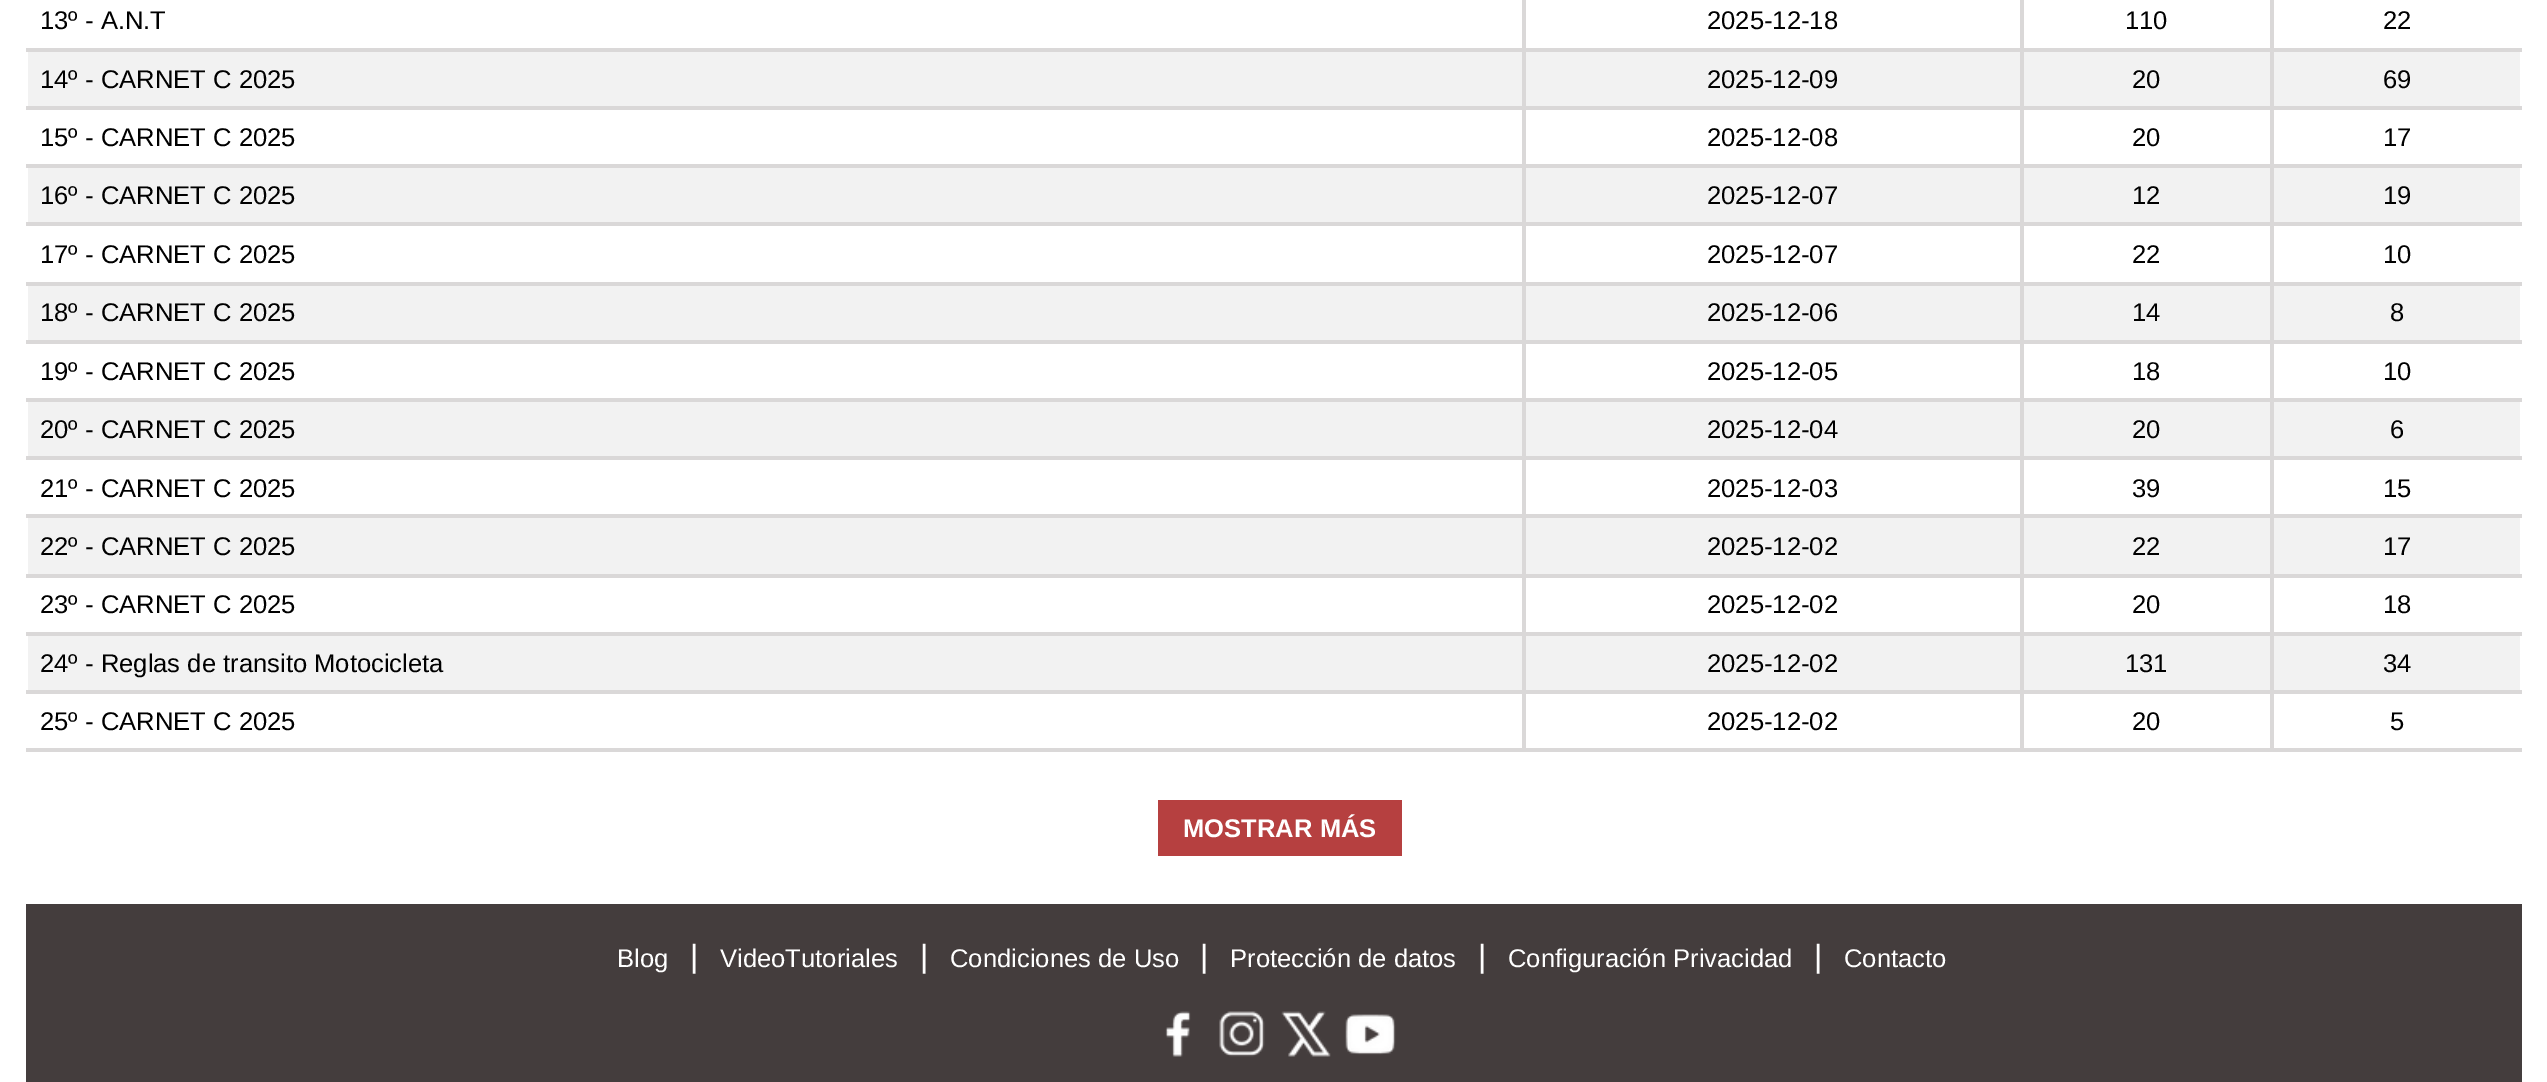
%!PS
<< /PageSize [2547 1082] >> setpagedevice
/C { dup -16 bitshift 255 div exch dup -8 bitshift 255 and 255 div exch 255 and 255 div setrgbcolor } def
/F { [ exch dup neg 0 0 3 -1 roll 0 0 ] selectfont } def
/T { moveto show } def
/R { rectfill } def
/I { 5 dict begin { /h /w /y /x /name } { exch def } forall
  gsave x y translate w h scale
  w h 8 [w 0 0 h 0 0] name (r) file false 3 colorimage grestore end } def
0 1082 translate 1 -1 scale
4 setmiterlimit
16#FFFFFF C
0 0 2547 1082 R
/LiberationSans-Regular 25.6 F
16#000000 C
(13º - A.N.T) 40 29 T
16#DAD8D8 C
2270 48 252 4 R
16#F2F2F2 C
28 52 2492 54 R
16#DAD8D8 C
2270 106 252 4 R
2270 164 252 4 R
16#F2F2F2 C
28 168 2492 54 R
16#DAD8D8 C
2270 222 252 4 R
2270 282 252 4 R
16#F2F2F2 C
28 286 2492 54 R
16#DAD8D8 C
2270 340 252 4 R
2270 398 252 4 R
16#F2F2F2 C
28 402 2492 54 R
16#DAD8D8 C
2270 456 252 4 R
2270 514 252 4 R
16#F2F2F2 C
28 518 2492 56 R
16#DAD8D8 C
2270 574 252 4 R
2270 632 252 4 R
16#F2F2F2 C
28 636 2492 54 R
16#DAD8D8 C
2270 690 252 4 R
2270 748 252 4 R
2270 690 4 62 R
2020 690 254 4 R
2270 632 4 62 R
2020 632 254 4 R
2270 574 4 62 R
2020 574 254 4 R
2270 514 4 64 R
2020 514 254 4 R
2270 456 4 62 R
2020 456 254 4 R
2270 398 4 62 R
2020 398 254 4 R
2270 340 4 62 R
2020 340 254 4 R
2270 282 4 62 R
2020 282 254 4 R
2270 222 4 64 R
2020 222 254 4 R
2270 164 4 62 R
2020 164 254 4 R
2270 106 4 62 R
2020 106 254 4 R
2270 48 4 62 R
2020 48 254 4 R
2020 748 254 4 R
2020 690 4 62 R
1522 690 502 4 R
2020 632 4 62 R
1522 632 502 4 R
2020 574 4 62 R
1522 574 502 4 R
2020 514 4 64 R
1522 514 502 4 R
2020 456 4 62 R
1522 456 502 4 R
2020 398 4 62 R
1522 398 502 4 R
2020 340 4 62 R
1522 340 502 4 R
2020 282 4 62 R
1522 282 502 4 R
2020 222 4 64 R
1522 222 502 4 R
2020 164 4 62 R
1522 164 502 4 R
2020 106 4 62 R
1522 106 502 4 R
2020 48 4 62 R
1522 48 502 4 R
1522 748 502 4 R
1522 690 4 62 R
26 690 1500 4 R
1522 632 4 62 R
26 632 1500 4 R
1522 574 4 62 R
26 574 1500 4 R
1522 514 4 64 R
26 514 1500 4 R
1522 456 4 62 R
26 456 1500 4 R
1522 398 4 62 R
26 398 1500 4 R
1522 340 4 62 R
26 340 1500 4 R
1522 282 4 62 R
26 282 1500 4 R
1522 222 4 64 R
26 222 1500 4 R
1522 164 4 62 R
26 164 1500 4 R
1522 106 4 62 R
26 106 1500 4 R
1522 48 4 62 R
26 48 1500 4 R
1522 0 4 52 R
16#000000 C
(2025-12-18) 1707 29 T
16#DAD8D8 C
2020 0 4 52 R
16#000000 C
(110) 2125 29 T
16#DAD8D8 C
2270 0 4 52 R
16#000000 C
(22) 2383 29 T
(14º - CARNET C 2025) 40 88 T
(2025-12-09) 1707 88 T
(20) 2132 88 T
(69) 2383 88 T
(15º - CARNET C 2025) 40 146 T
(2025-12-08) 1707 146 T
(20) 2132 146 T
(17) 2383 146 T
(16º - CARNET C 2025) 40 204 T
(2025-12-07) 1707 204 T
(12) 2132 204 T
(19) 2383 204 T
(17º - CARNET C 2025) 40 263 T
(2025-12-07) 1707 263 T
(22) 2132 263 T
(10) 2383 263 T
(18º - CARNET C 2025) 40 321 T
(2025-12-06) 1707 321 T
(14) 2132 321 T
(8) 2390 321 T
(19º - CARNET C 2025) 40 380 T
(2025-12-05) 1707 380 T
(18) 2132 380 T
(10) 2383 380 T
(20º - CARNET C 2025) 40 438 T
(2025-12-04) 1707 438 T
(20) 2132 438 T
(6) 2390 438 T
(21º - CARNET C 2025) 40 497 T
(2025-12-03) 1707 497 T
(39) 2132 497 T
(15) 2383 497 T
(22º - CARNET C 2025) 40 555 T
(2025-12-02) 1707 555 T
(22) 2132 555 T
(17) 2383 555 T
(23º - CARNET C 2025) 40 613 T
(2025-12-02) 1707 613 T
(20) 2132 613 T
(18) 2383 613 T
(24º - Reglas de transito Motocicleta) 40 672 T
(2025-12-02) 1707 672 T
(131) 2125 672 T
(34) 2383 672 T
16#DAD8D8 C
26 748 1500 4 R
16#000000 C
(25º - CARNET C 2025) 40 730 T
(2025-12-02) 1707 730 T
(20) 2132 730 T
(5) 2390 730 T
16#B64040 C
1158 800 244 56 R
/LiberationSans-Bold 25.6 F
16#FFFFFF C
(MOSTRAR MÁS) 1183 837 T
16#443D3D C
26 904 2496 178 R
/LiberationSans-Regular 25.6 F
16#FFFFFF C
(Blog) 617 967 T
/LiberationSans-Regular 32 F
(|) 690 967 T
/LiberationSans-Regular 25.6 F
(VideoTutoriales) 720 967 T
/LiberationSans-Regular 32 F
(|) 920 967 T
/LiberationSans-Regular 25.6 F
(Condiciones de Uso) 950 967 T
/LiberationSans-Regular 32 F
(|) 1200 967 T
/LiberationSans-Regular 25.6 F
(Protección de datos) 1230 967 T
/LiberationSans-Regular 32 F
(|) 1478 967 T
/LiberationSans-Regular 25.6 F
(Configuración Privacidad) 1508 967 T
/LiberationSans-Regular 32 F
(|) 1814 967 T
/LiberationSans-Regular 25.6 F
(Contacto) 1844 967 T
(1.rgb) 1165 1011 26 46 I
(2.rgb) 1219 1011 46 46 I
(3.rgb) 1281 1011 50 46 I
(4.rgb) 1345 1014 51 41 I
showpage
